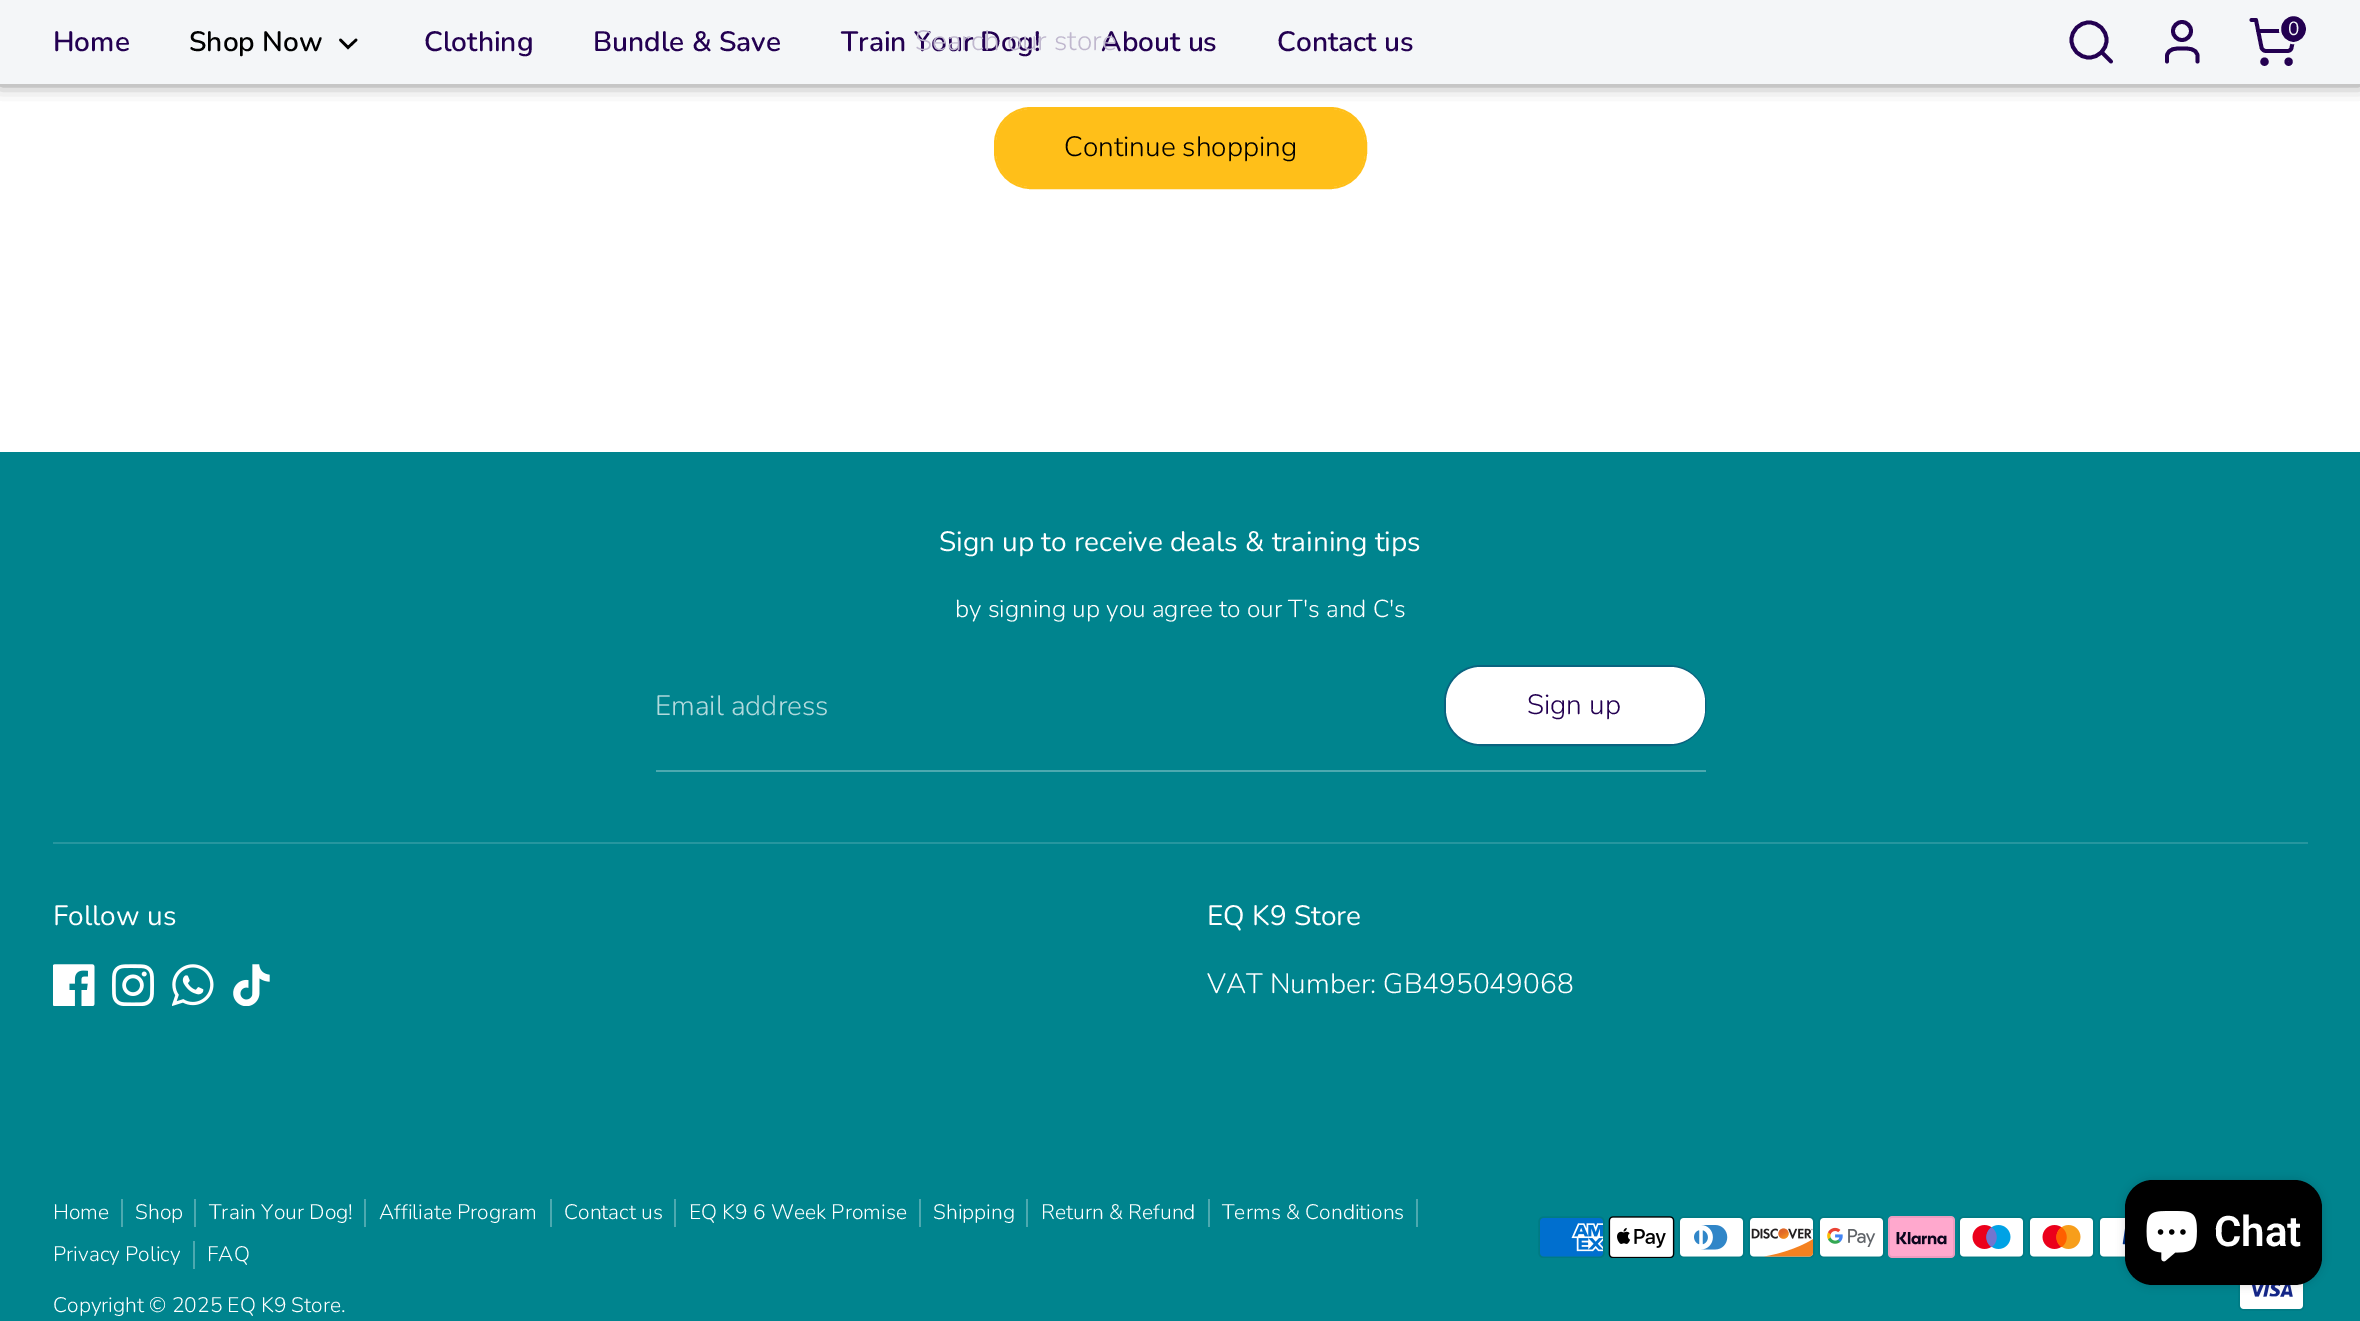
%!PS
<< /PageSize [2360 1321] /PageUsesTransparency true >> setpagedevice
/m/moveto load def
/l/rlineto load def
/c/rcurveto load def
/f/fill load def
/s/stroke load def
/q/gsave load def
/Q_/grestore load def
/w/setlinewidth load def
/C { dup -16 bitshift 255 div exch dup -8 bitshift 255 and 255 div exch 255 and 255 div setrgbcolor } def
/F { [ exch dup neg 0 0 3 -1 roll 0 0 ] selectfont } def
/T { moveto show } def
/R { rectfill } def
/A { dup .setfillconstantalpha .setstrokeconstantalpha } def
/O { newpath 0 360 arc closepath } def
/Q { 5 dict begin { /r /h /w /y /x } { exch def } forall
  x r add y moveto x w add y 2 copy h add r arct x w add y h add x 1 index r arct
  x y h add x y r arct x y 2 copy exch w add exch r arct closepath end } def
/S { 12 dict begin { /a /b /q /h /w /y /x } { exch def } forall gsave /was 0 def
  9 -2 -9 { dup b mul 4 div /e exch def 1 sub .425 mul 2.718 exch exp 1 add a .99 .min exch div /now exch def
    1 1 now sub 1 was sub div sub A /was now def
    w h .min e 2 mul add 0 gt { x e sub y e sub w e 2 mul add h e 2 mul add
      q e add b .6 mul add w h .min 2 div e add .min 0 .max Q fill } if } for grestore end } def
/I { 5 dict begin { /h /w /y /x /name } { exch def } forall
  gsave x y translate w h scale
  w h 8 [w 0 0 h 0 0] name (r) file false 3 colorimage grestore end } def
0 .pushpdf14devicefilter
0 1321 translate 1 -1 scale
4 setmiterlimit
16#FFFFFF C
0 0 2360 1321 R
16#FFBF19 C
2 w
995 108 371 80 36 Q s
16#000000 C
0 -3 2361 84 0 9 .75 S
16#F4F6F8 C
0 0 2360 84 R
/Nunito-SemiBold 28 F
16#230051 C
(Home) 53 51 T
16#000000 C
(Shop Now) 189 51 T
2.6 w
1 setlinecap
340.5 40 m 7.5 7.5 l 8 -7.5 l s
16#230051 C
(Clothing) 424 51 T
(Bundle & Save) 593 51 T
(Train Your Dog!) 841 51 T
(About us) 1101 51 T
(Contact us) 1277 51 T
3.8 w
0 setlinecap
2089 40 17.5 O s
1 setlinecap
1 setlinejoin
2111 61.5 m -9.5 -9.5 l s
2197.5 61.5 m 0 -6 l -1.5 -7.5 -9 -7 -15.5 -7 c -6 0 -13.5 -.5 -15 7 c 0 6 l s
0 setlinecap
0 setlinejoin
2182 31 9 O s
2264.5 61.7 2.2 O s
2288.6 61.7 2.2 O s
1 setlinecap
1 setlinejoin
2251.5 20 m 4.5 0 l 5.5 27.5 l .5 2 2.5 3.5 4.5 3.5 c 21.5 0 l 2 0 4 -1.5 4 -3.5 c 4 -16.5 l -37.5 0 l s
2280 15 27 28 13.5 Q q f Q_
16#F4F6F8 C
2 w
0 setlinecap
0 setlinejoin
s
/Nunito-Regular 19 F
(0) 2288 35 T
/Nunito-Light 28 F
16#C0B8CE C
(Search our store) 915 50 T
16#FFBF19 C
996 109 369 78 35 Q f
16#000000 C
(Continue shopping) 1064 156 T
16#00848E C
0 452 2360 869 R
/Nunito-Regular 28 F
16#FFFFFF C
(Sign up to receive deals & training tips) 939 551 T
/Nunito-Light 24.5 F
(by signing up you agree to our T's and C's) 955 617 T
16#4DA9B0 C
656 770 1050 2 R
/Nunito-Light 28 F
16#B3DADD C
(Email address) 655 715 T
16#09637F C
1445 666 260 79 36 Q s
16#FFFFFF C
1446 667 259 77 35 Q f
16#230051 C
(Sign up) 1527 714 T
16#26969F C
53 842 2255 2 R
/Nunito-Regular 28 F
16#FFFFFF C
(Follow us) 53 925 T
(1.rgb) 53 964 42 42 I
(2.rgb) 112 964 42 42 I
(3.rgb) 172 964 42 42 I
(4.rgb) 233 964 37 42 I
(EQ K9 Store) 1207 925 T
/Nunito-Light 28 F
(VAT Number: GB495049068) 1207 993 T
/Nunito-Light 21 F
(Home) 53 1219 T
16#4DA9B0 C
121 1199 2 28 R
16#FFFFFF C
(Shop) 135 1219 T
16#4DA9B0 C
194 1199 2 28 R
16#FFFFFF C
(Train Your Dog!) 209 1219 T
16#4DA9B0 C
364 1199 2 28 R
16#FFFFFF C
(Affiliate Program) 379 1219 T
16#4DA9B0 C
550 1199 2 28 R
16#FFFFFF C
(Contact us) 564 1219 T
16#4DA9B0 C
674 1199 2 28 R
16#FFFFFF C
(EQ K9 6 Week Promise) 689 1219 T
16#4DA9B0 C
919 1199 2 28 R
16#FFFFFF C
(Shipping) 933 1219 T
16#4DA9B0 C
1026 1199 2 28 R
16#FFFFFF C
(Return & Refund) 1041 1219 T
16#4DA9B0 C
1208 1199 2 28 R
16#FFFFFF C
(Terms & Conditions) 1222 1219 T
16#4DA9B0 C
1416 1199 2 28 R
16#FFFFFF C
(Privacy Policy) 53 1261 T
16#4DA9B0 C
193 1241 2 28 R
16#FFFFFF C
(FAQ) 207 1261 T
(Copyright © 2025 EQ K9 Store.) 53 1312 T
(5.rgb) 1538 1216 67 42 I
(6.rgb) 1608 1216 67 42 I
(7.rgb) 1678 1216 67 42 I
(8.rgb) 1748 1216 67 42 I
(9.rgb) 1818 1216 67 42 I
(10.rgb) 1888 1216 67 42 I
(11.rgb) 1958 1216 67 42 I
(12.rgb) 2028 1216 67 42 I
(13.rgb) 2098 1216 28 42 I
(14.rgb) 2238 1282 67 29 I
16#000000 C
2125 1180 197 105 28 4.5 .15 S
2125 1180 197 105 28 Q f
(15.rgb) 2146 1211 51 51 I
/Roboto-SemiBold 42 F
16#FFFFFF C
(Chat) 2214 1246 T
.poppdf14devicefilter showpage
